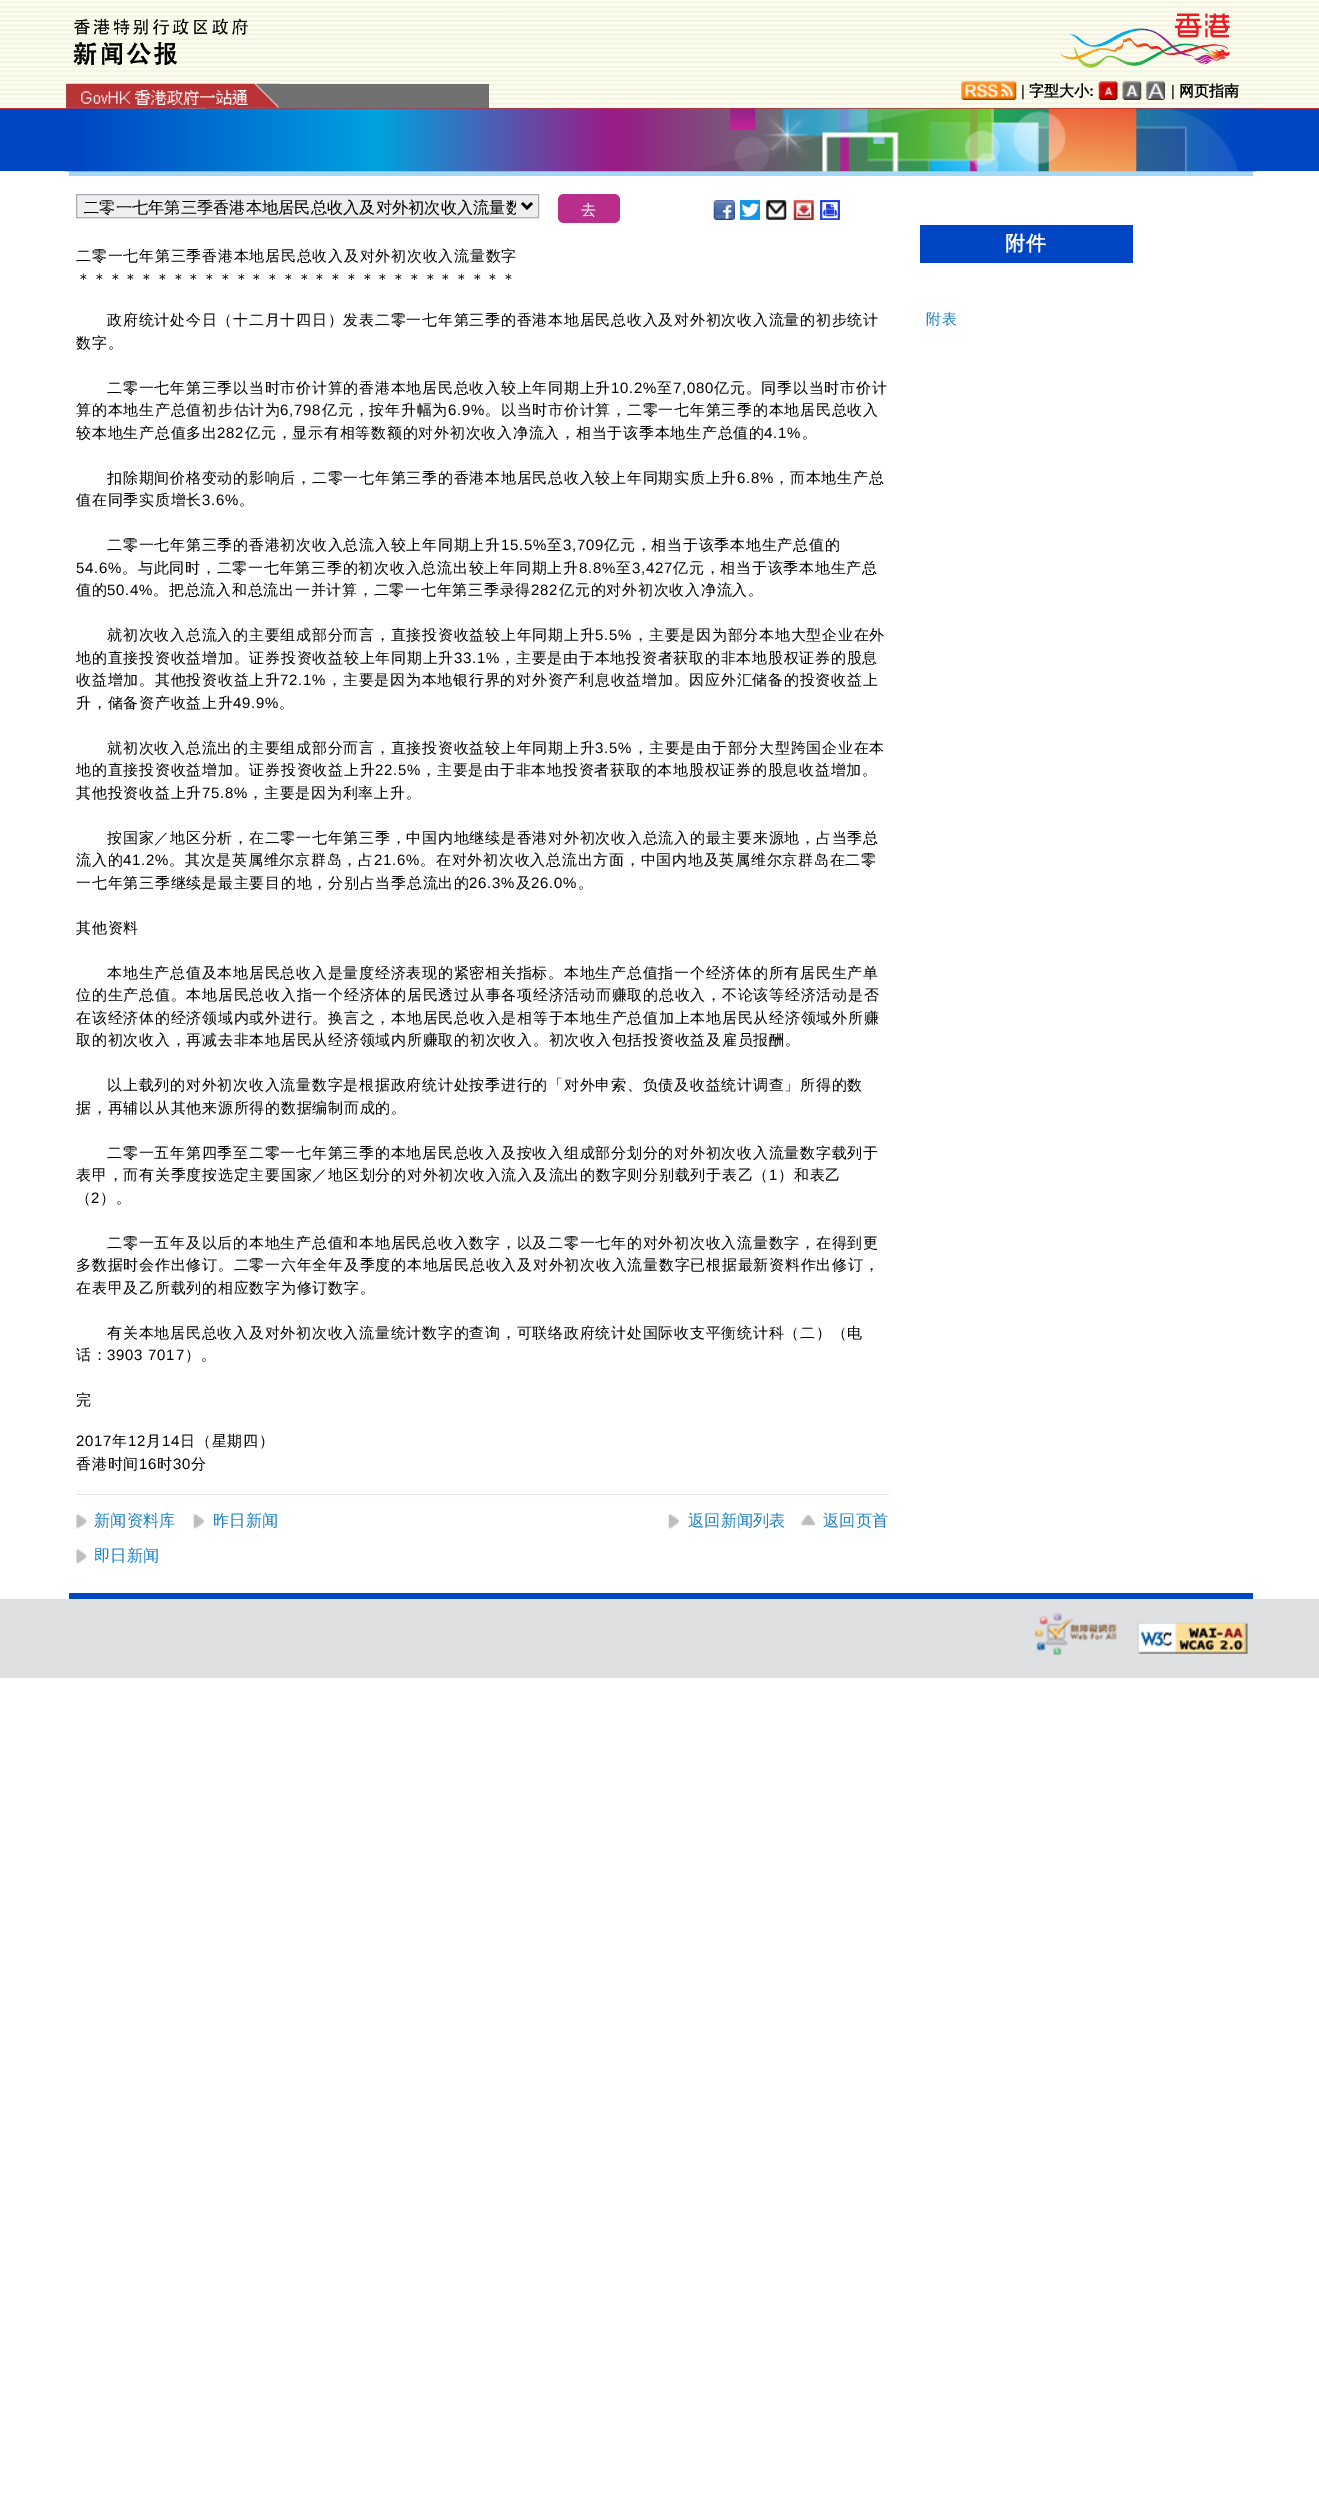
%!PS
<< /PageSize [1319 2519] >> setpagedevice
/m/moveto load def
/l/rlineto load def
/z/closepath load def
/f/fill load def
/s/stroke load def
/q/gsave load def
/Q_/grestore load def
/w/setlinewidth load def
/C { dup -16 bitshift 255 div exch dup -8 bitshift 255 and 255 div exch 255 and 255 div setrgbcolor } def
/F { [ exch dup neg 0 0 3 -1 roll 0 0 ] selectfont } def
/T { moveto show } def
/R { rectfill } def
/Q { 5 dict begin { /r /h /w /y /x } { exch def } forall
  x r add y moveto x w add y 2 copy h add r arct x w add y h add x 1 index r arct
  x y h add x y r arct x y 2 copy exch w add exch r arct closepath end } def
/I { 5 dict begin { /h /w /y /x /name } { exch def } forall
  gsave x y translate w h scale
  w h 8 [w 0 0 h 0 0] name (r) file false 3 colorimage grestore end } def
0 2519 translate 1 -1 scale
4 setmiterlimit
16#FFFFFF C
0 0 1319 2519 R
(1.rgb) 0 0 1319 108 I
16#BB3333 C
0 108 1319 1 R
(2.rgb) 73 18 175 47 I
(3.rgb) 1060 13 170 55 I
16#717171 C
66 84 423 24 R
(4.rgb) 66 83 214 25 I
(5.rgb) 81 90 167 15 I
(6.rgb) 177 108 30 1 I
(7.rgb) 961 81 56 19 I
/LiberationSans-Regular 15 F
16#000000 C
(|) 1021 96 T
/WenQuanYiZenHei-Bold 15 F
(字型大小) 1029 96 T
/LiberationSans-Bold 15 F
(:) 1089 96 T
(8.rgb) 1098 81 20 19 I
(9.rgb) 1122 81 20 19 I
(10.rgb) 1146 81 19 19 I
/LiberationSans-Regular 15 F
(|) 1171 96 T
/WenQuanYiZenHei-Bold 15 F
(网页指南) 1179 96 T
16#0046C4 C
0 109 1319 62 R
16#A3D8F7 C
69 171 1184 5 R
(11.rgb) 65 108 1192 64 I
16#0046C4 C
69 1593 1184 6 R
16#EFEFEF C
76.5 194.5 m 462 0 l 0 23 l -462 0 l z q f Q_
16#ABADB3 C
s
16#000000 C
2.5 w
522 203 m 5 5 l 5 -5 l s
q
84 196 432 22 rectclip
/WenQuanYiZenHei-Medium 16.25 F
(二零一七年第三季香港本地居民总收入及对外初次收入流量数) 83 213 T
Q_
16#B82E8A C
558 194 62 29 6 Q f
/WenQuanYiZenHei-Medium 15 F
16#FFFFFF C
(去) 581 215 T
(12.rgb) 713 200 22 20 I
(13.rgb) 740 200 20 20 I
(14.rgb) 766 200 21 20 I
(15.rgb) 793 200 21 20 I
(16.rgb) 820 200 20 20 I
16#000000 C
76 261 m .75 0 (二零一七年第三季香港本地居民总收入及对外初次收入流量数字) ashow
76 284 m .75 0 (＊＊＊＊＊＊＊＊＊＊＊＊＊＊＊＊＊＊＊＊＊＊＊＊＊＊) ashow
485 284 m .75 0 (＊＊) ashow
107 325 m .75 0 (政府统计处今日（十二月十四日）发表二零一七年第三季的香港本地居民总收入及对外初次收入流量的初步统计) ashow
76 348 m .75 0 (数字。) ashow
107 393 m .75 0 (二零一七年第三季以当时市价计算的香港本地居民总收入较上年同期上升) ashow
/LiberationSans-Regular 15 F
611 393 m .75 0 (10.2%) ashow
/WenQuanYiZenHei-Medium 15 F
657 393 m .75 0 (至) ashow
/LiberationSans-Regular 15 F
673 393 m .75 0 (7,080) ashow
/WenQuanYiZenHei-Medium 15 F
714 393 m .75 0 (亿元。同季以当时市价计) ashow
76 415 m .75 0 (算的本地生产总值初步估计为) ashow
/LiberationSans-Regular 15 F
280 415 m .75 0 (6,798) ashow
/WenQuanYiZenHei-Medium 15 F
322 415 m .75 0 (亿元，按年升幅为) ashow
/LiberationSans-Regular 15 F
448 415 m .75 0 (6.9%) ashow
/WenQuanYiZenHei-Medium 15 F
485 415 m .75 0 (。以当时市价计算，二零一七年第三季的本地居民总收入) ashow
76 438 m .75 0 (较本地生产总值多出) ashow
/LiberationSans-Regular 15 F
217 438 m .75 0 (282) ashow
/WenQuanYiZenHei-Medium 15 F
245 438 m .75 0 (亿元，显示有相等数额的对外初次收入净流入，相当于该季本地生产总值的) ashow
/LiberationSans-Regular 15 F
764 438 m .75 0 (4.1%) ashow
/WenQuanYiZenHei-Medium 15 F
802 438 m .75 0 (。) ashow
107 483 m .75 0 (扣除期间价格变动的影响后，二零一七年第三季的香港本地居民总收入较上年同期实质上升) ashow
/LiberationSans-Regular 15 F
737 483 m .75 0 (6.8%) ashow
/WenQuanYiZenHei-Medium 15 F
774 483 m .75 0 (，而本地生产总) ashow
76 505 m .75 0 (值在同季实质增长) ashow
/LiberationSans-Regular 15 F
202 505 m .75 0 (3.6%) ashow
/WenQuanYiZenHei-Medium 15 F
239 505 m .75 0 (。) ashow
107 550 m .75 0 (二零一七年第三季的香港初次收入总流入较上年同期上升) ashow
/LiberationSans-Regular 15 F
501 550 m .75 0 (15.5%) ashow
/WenQuanYiZenHei-Medium 15 F
547 550 m .75 0 (至) ashow
/LiberationSans-Regular 15 F
563 550 m .75 0 (3,709) ashow
/WenQuanYiZenHei-Medium 15 F
604 550 m .75 0 (亿元，相当于该季本地生产总值的) ashow
/LiberationSans-Regular 15 F
76 573 m .75 0 (54.6%) ashow
/WenQuanYiZenHei-Medium 15 F
122 573 m .75 0 (。与此同时，二零一七年第三季的初次收入总流出较上年同期上升) ashow
/LiberationSans-Regular 15 F
579 573 m .75 0 (8.8%) ashow
/WenQuanYiZenHei-Medium 15 F
616 573 m .75 0 (至) ashow
/LiberationSans-Regular 15 F
632 573 m .75 0 (3,427) ashow
/WenQuanYiZenHei-Medium 15 F
673 573 m .75 0 (亿元，相当于该季本地生产总) ashow
76 595 m .75 0 (值的) ashow
/LiberationSans-Regular 15 F
107 595 m .75 0 (50.4%) ashow
/WenQuanYiZenHei-Medium 15 F
153 595 m .75 0 (。把总流入和总流出一并计算，二零一七年第三季录得) ashow
/LiberationSans-Regular 15 F
531 595 m .75 0 (282) ashow
/WenQuanYiZenHei-Medium 15 F
559 595 m .75 0 (亿元的对外初次收入净流入。) ashow
107 640 m .75 0 (就初次收入总流入的主要组成部分而言，直接投资收益较上年同期上升) ashow
/LiberationSans-Regular 15 F
595 640 m .75 0 (5.5%) ashow
/WenQuanYiZenHei-Medium 15 F
633 640 m .75 0 (，主要是因为部分本地大型企业在外) ashow
76 663 m .75 0 (地的直接投资收益增加。证券投资收益较上年同期上升) ashow
/LiberationSans-Regular 15 F
454 663 m .75 0 (33.1%) ashow
/WenQuanYiZenHei-Medium 15 F
500 663 m .75 0 (，主要是由于本地投资者获取的非本地股权证券的股息) ashow
76 685 m .75 0 (收益增加。其他投资收益上升) ashow
/LiberationSans-Regular 15 F
280 685 m .75 0 (72.1%) ashow
/WenQuanYiZenHei-Medium 15 F
327 685 m .75 0 (，主要是因为本地银行界的对外资产利息收益增加。因应外汇储备的投资收益上) ashow
76 708 m .75 0 (升，储备资产收益上升) ashow
/LiberationSans-Regular 15 F
233 708 m .75 0 (49.9%) ashow
/WenQuanYiZenHei-Medium 15 F
279 708 m .75 0 (。) ashow
107 753 m .75 0 (就初次收入总流出的主要组成部分而言，直接投资收益较上年同期上升) ashow
/LiberationSans-Regular 15 F
595 753 m .75 0 (3.5%) ashow
/WenQuanYiZenHei-Medium 15 F
633 753 m .75 0 (，主要是由于部分大型跨国企业在本) ashow
76 775 m .75 0 (地的直接投资收益增加。证券投资收益上升) ashow
/LiberationSans-Regular 15 F
375 775 m .75 0 (22.5%) ashow
/WenQuanYiZenHei-Medium 15 F
421 775 m .75 0 (，主要是由于非本地投资者获取的本地股权证券的股息收益增加。) ashow
76 798 m .75 0 (其他投资收益上升) ashow
/LiberationSans-Regular 15 F
202 798 m .75 0 (75.8%) ashow
/WenQuanYiZenHei-Medium 15 F
248 798 m .75 0 (，主要是因为利率上升。) ashow
107 843 m .75 0 (按国家／地区分析，在二零一七年第三季，中国内地继续是香港对外初次收入总流入的最主要来源地，占当季总) ashow
76 865 m .75 0 (流入的) ashow
/LiberationSans-Regular 15 F
123 865 m .75 0 (41.2%) ashow
/WenQuanYiZenHei-Medium 15 F
169 865 m .75 0 (。其次是英属维尔京群岛，占) ashow
/LiberationSans-Regular 15 F
374 865 m .75 0 (21.6%) ashow
/WenQuanYiZenHei-Medium 15 F
420 865 m .75 0 (。在对外初次收入总流出方面，中国内地及英属维尔京群岛在二零) ashow
76 888 m .75 0 (一七年第三季继续是最主要目的地，分别占当季总流出的) ashow
/LiberationSans-Regular 15 F
469 888 m .75 0 (26.3%) ashow
/WenQuanYiZenHei-Medium 15 F
516 888 m .75 0 (及) ashow
/LiberationSans-Regular 15 F
531 888 m .75 0 (26.0%) ashow
/WenQuanYiZenHei-Medium 15 F
578 888 m .75 0 (。) ashow
76 933 m .75 0 (其他资料) ashow
107 978 m .75 0 (本地生产总值及本地居民总收入是量度经济表现的紧密相关指标。本地生产总值指一个经济体的所有居民生产单) ashow
76 1000 m .75 0 (位的生产总值。本地居民总收入指一个经济体的居民透过从事各项经济活动而赚取的总收入，不论该等经济活动是否) ashow
76 1023 m .75 0 (在该经济体的经济领域内或外进行。换言之，本地居民总收入是相等于本地生产总值加上本地居民从经济领域外所赚) ashow
76 1045 m .75 0 (取的初次收入，再减去非本地居民从经济领域内所赚取的初次收入。初次收入包括投资收益及雇员报酬。) ashow
107 1090 m .75 0 (以上载列的对外初次收入流量数字是根据政府统计处按季进行的「对外申索、负债及收益统计调查」所得的数) ashow
76 1113 m .75 0 (据，再辅以从其他来源所得的数据编制而成的。) ashow
107 1158 m .75 0 (二零一五年第四季至二零一七年第三季的本地居民总收入及按收入组成部分划分的对外初次收入流量数字载列于) ashow
76 1180 m .75 0 (表甲，而有关季度按选定主要国家／地区划分的对外初次收入流入及流出的数字则分别载列于表乙（) ashow
/LiberationSans-Regular 15 F
769 1180 m .75 0 (1) ashow
/WenQuanYiZenHei-Medium 15 F
778 1180 m .75 0 (）和表乙) ashow
76 1203 m .75 0 (（) ashow
/LiberationSans-Regular 15 F
91 1203 m .75 0 (2) ashow
/WenQuanYiZenHei-Medium 15 F
100 1203 m .75 0 (）。) ashow
107 1248 m .75 0 (二零一五年及以后的本地生产总值和本地居民总收入数字，以及二零一七年的对外初次收入流量数字，在得到更) ashow
76 1270 m .75 0 (多数据时会作出修订。二零一六年全年及季度的本地居民总收入及对外初次收入流量数字已根据最新资料作出修订，) ashow
76 1293 m .75 0 (在表甲及乙所载列的相应数字为修订数字。) ashow
107 1338 m .75 0 (有关本地居民总收入及对外初次收入流量统计数字的查询，可联络政府统计处国际收支平衡统计科（二）（电) ashow
76 1360 m .75 0 (话：) ashow
/LiberationSans-Regular 15 F
107 1360 m .75 0 (3903 7017) ashow
/WenQuanYiZenHei-Medium 15 F
185 1360 m .75 0 (）。) ashow
76 1405 m .75 0 (完) ashow
/LiberationSans-Regular 15 F
76 1446 m .75 0 (2017) ashow
/WenQuanYiZenHei-Medium 15 F
112 1446 m .75 0 (年) ashow
/LiberationSans-Regular 15 F
128 1446 m .75 0 (12) ashow
/WenQuanYiZenHei-Medium 15 F
146 1446 m .75 0 (月) ashow
/LiberationSans-Regular 15 F
162 1446 m .75 0 (14) ashow
/WenQuanYiZenHei-Medium 15 F
180 1446 m .75 0 (日（星期四）) ashow
76 1469 m .75 0 (香港时间) ashow
/LiberationSans-Regular 15 F
139 1469 m .75 0 (16) ashow
/WenQuanYiZenHei-Medium 15 F
157 1469 m .75 0 (时) ashow
/LiberationSans-Regular 15 F
173 1469 m .75 0 (30) ashow
/WenQuanYiZenHei-Medium 15 F
191 1469 m .75 0 (分) ashow
16#DCE7E9 C
76 1494 813 1 R
(17.rgb) 76 1513 11 16 I
/WenQuanYiZenHei-Medium 16.25 F
16#2083C5 C
(新闻资料库) 94 1526 T
(18.rgb) 193 1513 11 16 I
(昨日新闻) 213 1526 T
(19.rgb) 668 1513 11 16 I
(返回新闻列表) 688 1526 T
(20.rgb) 801 1515 15 11 I
(返回页首) 823 1526 T
(17.rgb) 76 1548 11 16 I
(即日新闻) 94 1561 T
16#0046C4 C
920 225 213 38 R
/WenQuanYiZenHei-Bold 20 F
16#FFFFFF C
1005 250 m .75 0 (附件) ashow
/WenQuanYiZenHei-Medium 15 F
16#2083C5 C
926 324 m .75 0 (附表) ashow
16#DEE0E2 C
0 1599 1319 79 R
(21.rgb) 1034 1612 83 43 I
(22.rgb) 1137 1622 111 32 I
showpage
